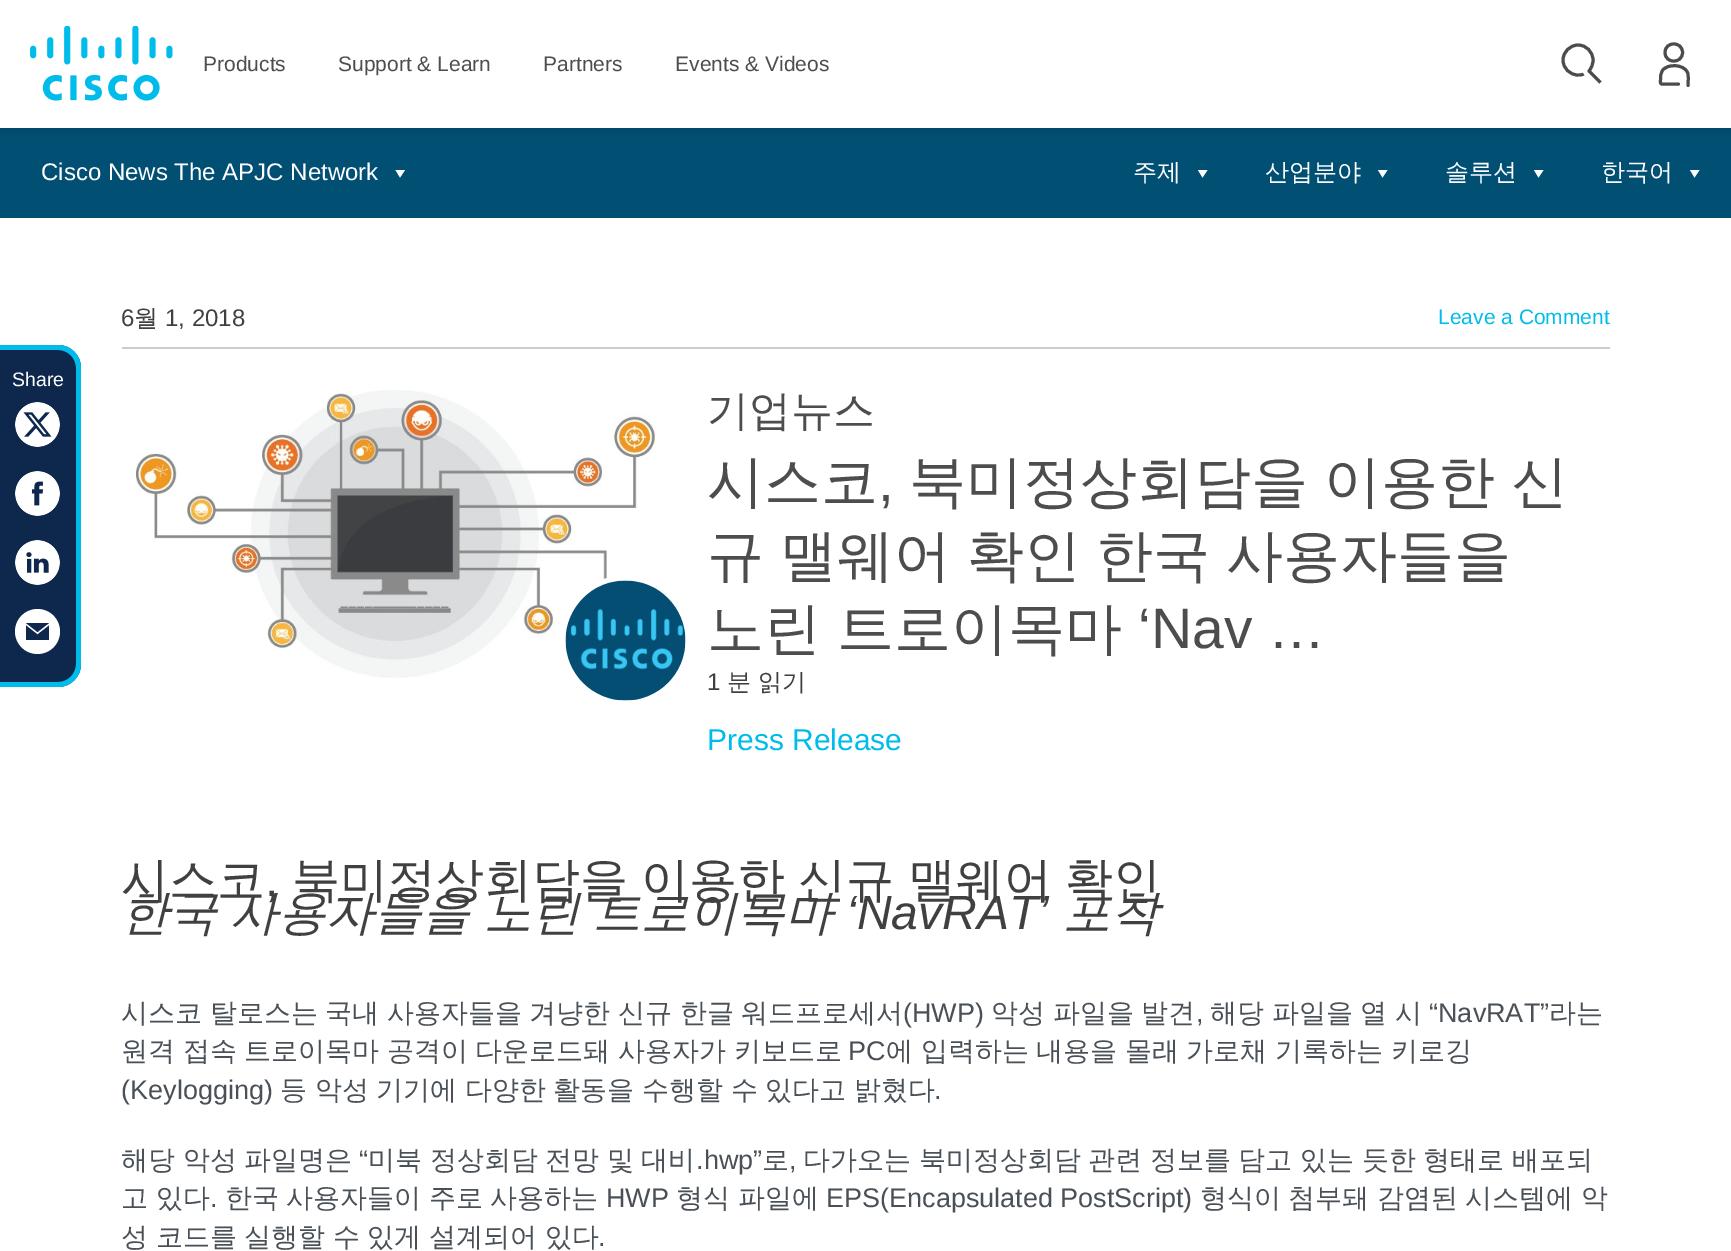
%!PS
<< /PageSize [1731 1251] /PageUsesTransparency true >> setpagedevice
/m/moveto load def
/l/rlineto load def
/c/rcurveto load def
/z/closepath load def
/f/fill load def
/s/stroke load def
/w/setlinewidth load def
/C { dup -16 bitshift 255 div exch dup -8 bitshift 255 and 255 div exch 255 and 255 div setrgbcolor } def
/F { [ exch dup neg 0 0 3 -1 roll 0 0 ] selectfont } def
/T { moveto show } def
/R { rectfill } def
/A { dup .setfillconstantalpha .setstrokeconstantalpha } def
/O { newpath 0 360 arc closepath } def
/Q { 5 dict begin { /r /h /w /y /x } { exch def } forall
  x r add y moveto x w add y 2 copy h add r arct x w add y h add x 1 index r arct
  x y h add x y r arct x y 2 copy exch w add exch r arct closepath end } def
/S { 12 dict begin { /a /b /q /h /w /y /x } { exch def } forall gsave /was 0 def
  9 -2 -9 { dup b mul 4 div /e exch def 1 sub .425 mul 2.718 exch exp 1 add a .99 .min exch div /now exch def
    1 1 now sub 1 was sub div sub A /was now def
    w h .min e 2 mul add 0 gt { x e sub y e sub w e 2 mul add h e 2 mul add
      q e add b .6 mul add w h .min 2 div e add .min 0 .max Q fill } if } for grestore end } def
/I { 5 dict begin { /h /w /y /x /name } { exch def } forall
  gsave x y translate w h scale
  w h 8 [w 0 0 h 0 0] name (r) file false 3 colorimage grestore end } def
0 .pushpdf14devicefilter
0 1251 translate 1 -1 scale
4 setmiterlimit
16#FFFFFF C
0 0 1731 1251 R
16#014F73 C
0 128 1731 90 R
16#000000 C
0 3 1731 128 0 4 .12 S
16#FFFFFF C
0 0 1731 128 R
(1.rgb) 30 26 143 75 I
/LiberationSans-Regular 21 F
16#4D4D4C C
(Products) 203 71 T
(Support & Learn) 338 71 T
(Partners) 543 71 T
(Events & Videos) 675 71 T
16#4D4C4C C
3 w
1 setlinejoin
1583.5 74 m -1.5 1 -3.5 1 -5.5 1 c -8 0 -15 -6.5 -15 -15 c 0 -8 7 -15 15 -15 c 8.5 0 15 7 15 15 c 0 4.5 -1.5 8 -4 11 c 11.5 11.5 l s
1 setlinecap
1688 85.5 m 0 -4 1 -9 -.5 -13 c -3.5 -8.5 -20.5 -9 -25 -2 c -2 3 -2 6 -2 9 c 0 1.5 -.5 4 1 4.5 c 17 0 l 1665 52.5 m 0 -11.5 17.5 -11.5 17.5 0 c 0 11.5 -17.5 11.5 -17.5 0 c z s
/LiberationSans-Regular 24 F
16#FFFFFF C
(Cisco News The APJC Network) 41 180 T
405 170 m -5 7.5 l -4.5 -7.5 l z f
/WenQuanYiZenHei-Medium 24 F
(주제) 1133 180 T
1207.5 170 m -5 7.5 l -4.5 -7.5 l z f
(산업분야) 1265 180 T
1387.5 170 m -5 7.5 l -4.5 -7.5 l z f
(솔루션) 1445 180 T
1543.5 170 m -5 7.5 l -4.5 -7.5 l z f
(한국어) 1601 180 T
1699.5 170 m -5 7.5 l -4.5 -7.5 l z f
/LiberationSans-Regular 24 F
16#404040 C
(6) 121 326 T
/WenQuanYiZenHei-Medium 24 F
(월) 134 326 T
/LiberationSans-Regular 24 F
(1, 2018) 165 326 T
/LiberationSans-Regular 21 F
16#00BCEB C
(Leave a Comment) 1438 324 T
16#CCCCCC C
122 347 1488 2 R
16#0D274D C
0 345 m 58 0 l 12.5 0 23 10.5 23 23 c 0 296 l 0 12.5 -10.5 23 -23 23 c -58 0 l z f
16#00BCEB C
0 345 m 58 0 l 13 0 23 10 23 23 c 0 296 l 0 13 -10 23 -23 23 c -58 0 l z 0 350 m 58 0 l 10 0 18 8 18 18 c 0 296 l 0 10 -8 18 -18 18 c -58 0 l z eofill
/LiberationSans-Regular 19.5 F
16#FFFFFF C
(Share) 12 386 T
(2.rgb) 15 402 45 45 I
(3.rgb) 15 471 45 45 I
(4.rgb) 15 540 45 45 I
37.5 631.5 22.5 O f
16#0D274D C
37.5 632 m -11.5 -9 l 23 0 l z 37.5 634.5 m -11.5 -9 l 0 14.5 l 23 0 l 0 -14.5 l z f
/WenQuanYiZenHei-Medium 48 F
16#404040 C
(시스코) 121 896 T
/LiberationSans-Regular 48 F
(,) 265 896 T
/WenQuanYiZenHei-Medium 48 F
(북미정상회담을) 292 896 T
(이용한) 641 896 T
(신규) 798 896 T
(맬웨어) 908 896 T
(확인) 1065 896 T
/WenQuanYiZenHei-MediumItalic 48 F
(한국) 121 929 T
(사용자들을) 230 929 T
(노린) 484 929 T
(트로이목마) 593 929 T
/LiberationSans-Italic 48 F
(‘NavRAT’) 846 929 T
/WenQuanYiZenHei-MediumItalic 48 F
(포착) 1063 929 T
/WenQuanYiZenHei-Medium 27 F
16#495057 C
121 1022 m -.5 0 32 (시스코 탈로스는 국내 사용자들을 겨냥한 신규 한글 워드프로세서) widthshow
/LiberationSans-Regular 27 F
(\(HWP\)) 903 1022 T
/WenQuanYiZenHei-Medium 27 F
991 1022 m -.5 0 32 (악성 파일을 발견) widthshow
/LiberationSans-Regular 27 F
(,) 1196 1022 T
/WenQuanYiZenHei-Medium 27 F
1210 1022 m -.5 0 32 (해당 파일을 열 시) widthshow
/LiberationSans-Regular 27 F
(“NavRAT”) 1429 1022 T
/WenQuanYiZenHei-Medium 27 F
(라는) 1549 1022 T
121 1060 m -.5 0 32 (원격 접속 트로이목마 공격이 다운로드돼 사용자가 키보드로) widthshow
/LiberationSans-Regular 27 F
(PC) 848 1060 T
/WenQuanYiZenHei-Medium 27 F
886 1060 m -.5 0 32 (에 입력하는 내용을 몰래 가로채 기록하는 키로깅) widthshow
/LiberationSans-Regular 27 F
(\(Keylogging\)) 121 1099 T
/WenQuanYiZenHei-Medium 27 F
280 1099 m -.5 0 32 (등 악성 기기에 다양한 활동을 수행할 수 있다고 밝혔다) widthshow
/LiberationSans-Regular 27 F
(.) 934 1099 T
/WenQuanYiZenHei-Medium 27 F
121 1169 m -.5 0 32 (해당 악성 파일명은) widthshow
/LiberationSans-Regular 27 F
(“) 359 1169 T
/WenQuanYiZenHei-Medium 27 F
368 1169 m -.5 0 32 (미북 정상회담 전망 및 대비) widthshow
/LiberationSans-Regular 27 F
(.hwp”) 696 1169 T
/WenQuanYiZenHei-Medium 27 F
(로) 762 1169 T
/LiberationSans-Regular 27 F
(,) 789 1169 T
/WenQuanYiZenHei-Medium 27 F
803 1169 m -.5 0 32 (다가오는 북미정상회담 관련 정보를 담고 있는 듯한 형태로 배포되) widthshow
(고) 121 1207 T
(있다) 156 1207 T
/LiberationSans-Regular 27 F
(.) 210 1207 T
/WenQuanYiZenHei-Medium 27 F
(한국) 225 1207 T
(사용자들이) 286 1207 T
(주로) 429 1207 T
(사용하는) 490 1207 T
/LiberationSans-Regular 27 F
(HWP) 606 1207 T
/WenQuanYiZenHei-Medium 27 F
(형식) 676 1207 T
(파일에) 738 1207 T
/LiberationSans-Regular 27 F
(EPS\(Encapsulated PostScript\)) 826 1207 T
/WenQuanYiZenHei-Medium 27 F
(형식이) 1200 1207 T
(첨부돼) 1288 1207 T
(감염된) 1377 1207 T
(시스템에) 1465 1207 T
(악) 1581 1207 T
121 1246 m -.5 0 32 (성 코드를 실행할 수 있게 설계되어 있다) widthshow
/LiberationSans-Regular 27 F
(.) 598 1246 T
(5.rgb) 136 390 521 288 I
16#FFFFFF C
6 w
0 setlinecap
0 setlinejoin
626 641 63 O s
(6.rgb) 565 580 121 121 I
/WenQuanYiZenHei-Medium 42 F
16#4D4D4C C
(기업뉴스) 707 425 T
/WenQuanYiZenHei-Medium 57 F
(시스코) 707 501 T
/LiberationSans-Regular 57 F
(,) 878 501 T
/WenQuanYiZenHei-Medium 57 F
909 501 m -1 0 32 (북미정상회담을 이용한 신) widthshow
707 575 m -1 0 32 (규 맬웨어 확인) widthshow
1096 575 m -1 0 32 (한국 사용자들을) widthshow
(노린) 707 648 T
(트로이목마) 837 648 T
/LiberationSans-Regular 57 F
(‘Nav …) 1138 648 T
/LiberationSans-Regular 24 F
16#404040 C
(1) 707 690 T
/WenQuanYiZenHei-Medium 24 F
(분 읽기) 727 690 T
/LiberationSans-Regular 30 F
16#00BCEB C
(Press Release) 707 750 T
.poppdf14devicefilter showpage
